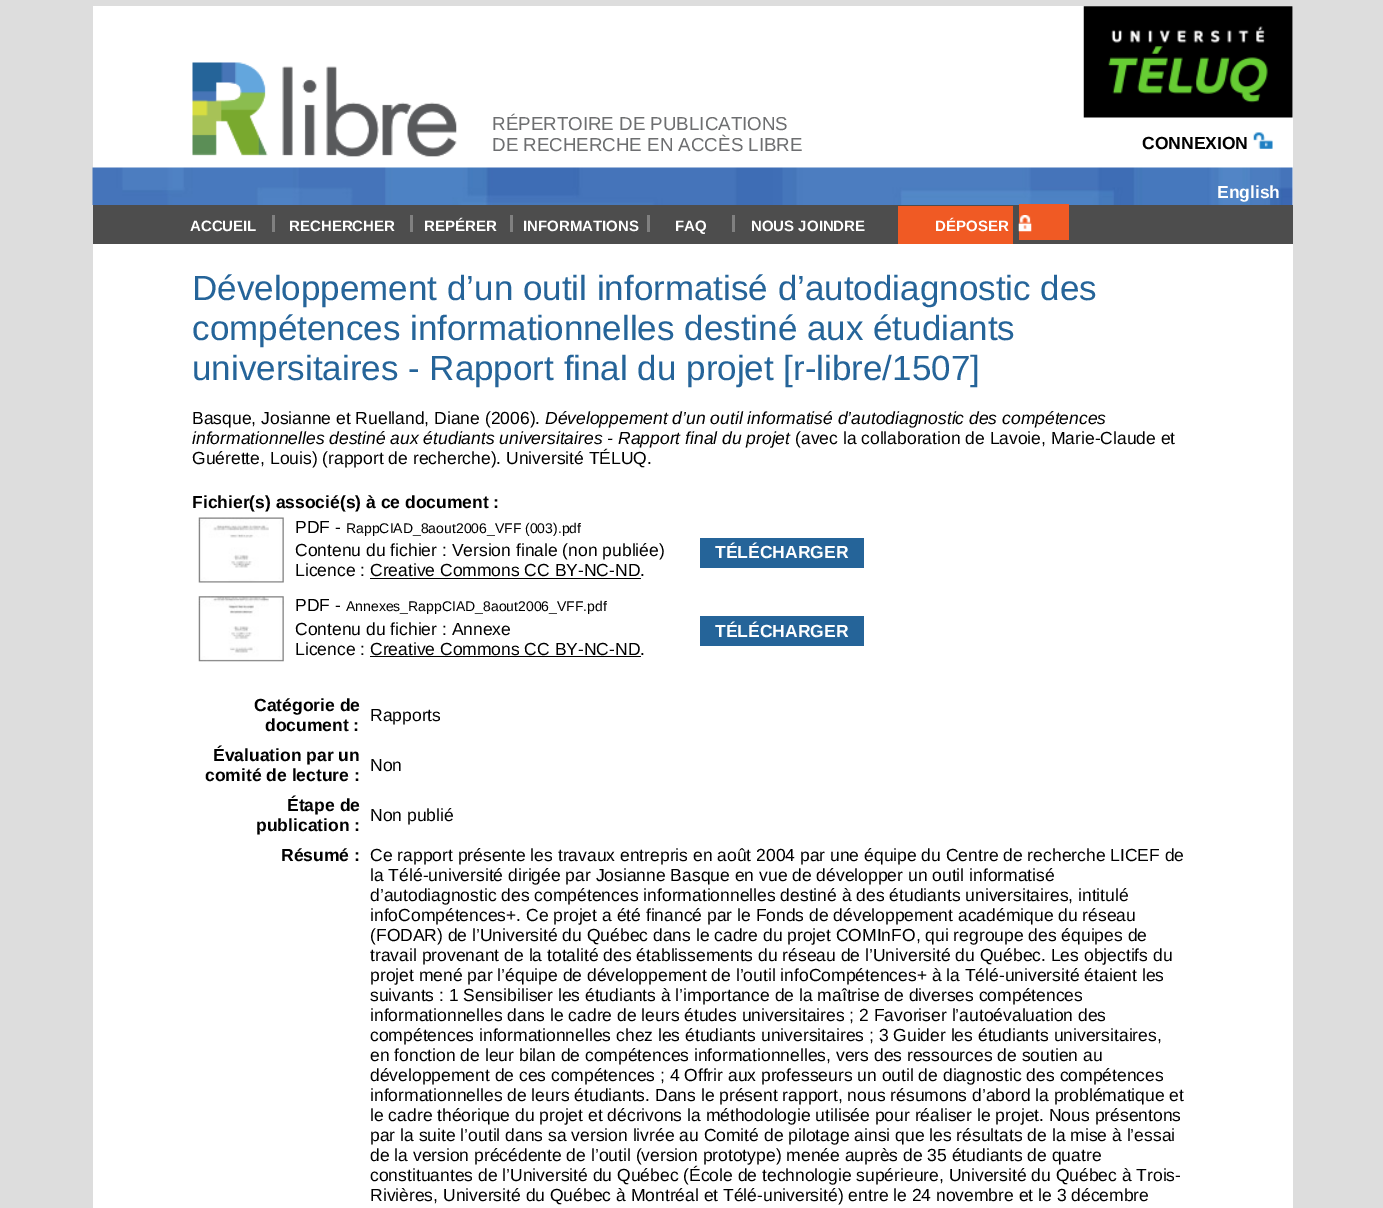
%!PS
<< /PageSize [1383 1208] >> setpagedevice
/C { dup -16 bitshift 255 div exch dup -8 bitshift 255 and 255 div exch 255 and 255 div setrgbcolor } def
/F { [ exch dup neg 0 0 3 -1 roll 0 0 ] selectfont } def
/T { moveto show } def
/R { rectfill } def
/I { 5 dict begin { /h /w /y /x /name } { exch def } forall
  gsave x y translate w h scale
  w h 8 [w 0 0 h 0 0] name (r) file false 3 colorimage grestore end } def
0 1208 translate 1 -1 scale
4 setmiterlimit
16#DDDDDD C
0 0 1383 1208 R
16#FFFFFF C
93 6 1200 162 R
(1.rgb) 192 62 265 95 I
/LiberationSans-Regular 18.75 F
16#6D6E70 C
(RÉPERTOIRE DE PUBLICATIONS) 492 130 T
(DE RECHERCHE EN ACCÈS LIBRE) 492 151 T
(2.rgb) 1083 6 210 112 I
/LiberationSans-Bold 17.5 F
16#000000 C
(CONNEXION) 1142 149 T
(3.rgb) 1253 132 20 17 I
16#FFFFFF C
1292 168 1 37 R
(4.rgb) 92 167 1201 38 I
(English) 1217 198 T
16#4D4D4D C
93 205 1200 39 R
/LiberationSans-Bold 15 F
16#FFFFFF C
(ACCUEIL) 190 231 T
16#808080 C
272 215 3 17 R
16#FFFFFF C
(RECHERCHER) 289 231 T
16#808080 C
410 215 3 17 R
16#FFFFFF C
(REPÉRER) 424 231 T
16#808080 C
510 215 3 17 R
16#FFFFFF C
(INFORMATIONS) 523 231 T
16#808080 C
647 215 3 17 R
16#FFFFFF C
(FAQ) 675 231 T
16#808080 C
732 215 3 17 R
16#FFFFFF C
(NOUS JOINDRE) 751 231 T
16#F05A24 C
898 206 115 38 R
16#FFFFFF C
(DÉPOSER) 935 231 T
16#F05A24 C
1019 204 50 36 R
(5.rgb) 1018 215 14 17 I
16#FFFFFF C
93 244 1200 964 R
/LiberationSans-Regular 35 F
16#256499 C
(Développement d’un outil informatisé d’autodiagnostic des) 192 300 T
(compétences informationnelles destiné aux étudiants) 192 340 T
(universitaires - Rapport final du projet [r-libre/1507]) 192 380 T
/LiberationSans-Regular 17.5 F
16#000000 C
(Basque, Josianne et Ruelland, Diane \(2006\).) 192 424 T
/LiberationSans-Italic 17.5 F
(Développement d’un outil informatisé d’autodiagnostic des compétences) 545 424 T
(informationnelles destiné aux étudiants universitaires - Rapport final du projet) 192 444 T
/LiberationSans-Regular 17.5 F
(\(avec la collaboration de Lavoie, Marie-Claude et) 795 444 T
(Guérette, Louis\) \(rapport de recherche\). Université TÉLUQ.) 192 464 T
/LiberationSans-Bold 17.5 F
(Fichier\(s\) associé\(s\) à ce document :) 192 508 T
(6.rgb) 198 517 86 66 I
/LiberationSans-Regular 17.5 F
(PDF -) 295 533 T
/LiberationSans-Regular 14 F
(RappCIAD_8aout2006_VFF \(003\).pdf) 346 533 T
/LiberationSans-Regular 17.5 F
(Contenu du fichier : Version finale \(non publiée\)) 295 556 T
(Licence : Creative Commons CC BY-NC-ND.) 295 576 T
370 578 271 1 R
16#256499 C
700 538 164 30 R
/LiberationSans-Bold 17.5 F
16#FFFFFF C
(TÉLÉCHARGER) 715 558 T
(7.rgb) 198 596 86 66 I
/LiberationSans-Regular 17.5 F
16#000000 C
(PDF -) 295 611 T
/LiberationSans-Regular 14 F
(Annexes_RappCIAD_8aout2006_VFF.pdf) 346 611 T
/LiberationSans-Regular 17.5 F
(Contenu du fichier : Annexe) 295 635 T
(Licence : Creative Commons CC BY-NC-ND.) 295 655 T
370 656 271 1 R
16#256499 C
700 616 164 30 R
/LiberationSans-Bold 17.5 F
16#FFFFFF C
(TÉLÉCHARGER) 715 637 T
16#000000 C
(Catégorie de) 254 711 T
(document :) 265 731 T
/LiberationSans-Regular 17.5 F
(Rapports) 370 721 T
/LiberationSans-Bold 17.5 F
(Évaluation par un) 213 761 T
(comité de lecture :) 205 781 T
/LiberationSans-Regular 17.5 F
(Non) 370 771 T
/LiberationSans-Bold 17.5 F
(Étape de) 287 811 T
(publication :) 256 831 T
/LiberationSans-Regular 17.5 F
(Non publié) 370 821 T
/LiberationSans-Bold 17.5 F
(Résumé :) 281 861 T
/LiberationSans-Regular 17.5 F
(Ce rapport présente les travaux entrepris en août 2004 par une équipe du Centre de recherche LICEF de) 370 861 T
(la Télé-université dirigée par Josianne Basque en vue de développer un outil informatisé) 370 881 T
(d’autodiagnostic des compétences informationnelles destiné à des étudiants universitaires, intitulé) 370 901 T
(infoCompétences+. Ce projet a été financé par le Fonds de développement académique du réseau) 370 921 T
(\(FODAR\) de l’Université du Québec dans le cadre du projet COMInFO, qui regroupe des équipes de) 370 941 T
(travail provenant de la totalité des établissements du réseau de l’Université du Québec. Les objectifs du) 370 961 T
(projet mené par l’équipe de développement de l’outil infoCompétences+ à la Télé-université étaient les) 370 981 T
(suivants : 1 Sensibiliser les étudiants à l’importance de la maîtrise de diverses compétences) 370 1001 T
(informationnelles dans le cadre de leurs études universitaires ; 2 Favoriser l’autoévaluation des) 370 1021 T
(compétences informationnelles chez les étudiants universitaires ; 3 Guider les étudiants universitaires,) 370 1041 T
(en fonction de leur bilan de compétences informationnelles, vers des ressources de soutien au) 370 1061 T
(développement de ces compétences ; 4 Offrir aux professeurs un outil de diagnostic des compétences) 370 1081 T
(informationnelles de leurs étudiants. Dans le présent rapport, nous résumons d’abord la problématique et) 370 1101 T
(le cadre théorique du projet et décrivons la méthodologie utilisée pour réaliser le projet. Nous présentons) 370 1121 T
(par la suite l’outil dans sa version livrée au Comité de pilotage ainsi que les résultats de la mise à l’essai) 370 1141 T
(de la version précédente de l’outil \(version prototype\) menée auprès de 35 étudiants de quatre) 370 1161 T
(constituantes de l’Université du Québec \(École de technologie supérieure, Université du Québec à Trois-) 370 1181 T
(Rivières, Université du Québec à Montréal et Télé-université\) entre le 24 novembre et le 3 décembre) 370 1201 T
showpage
